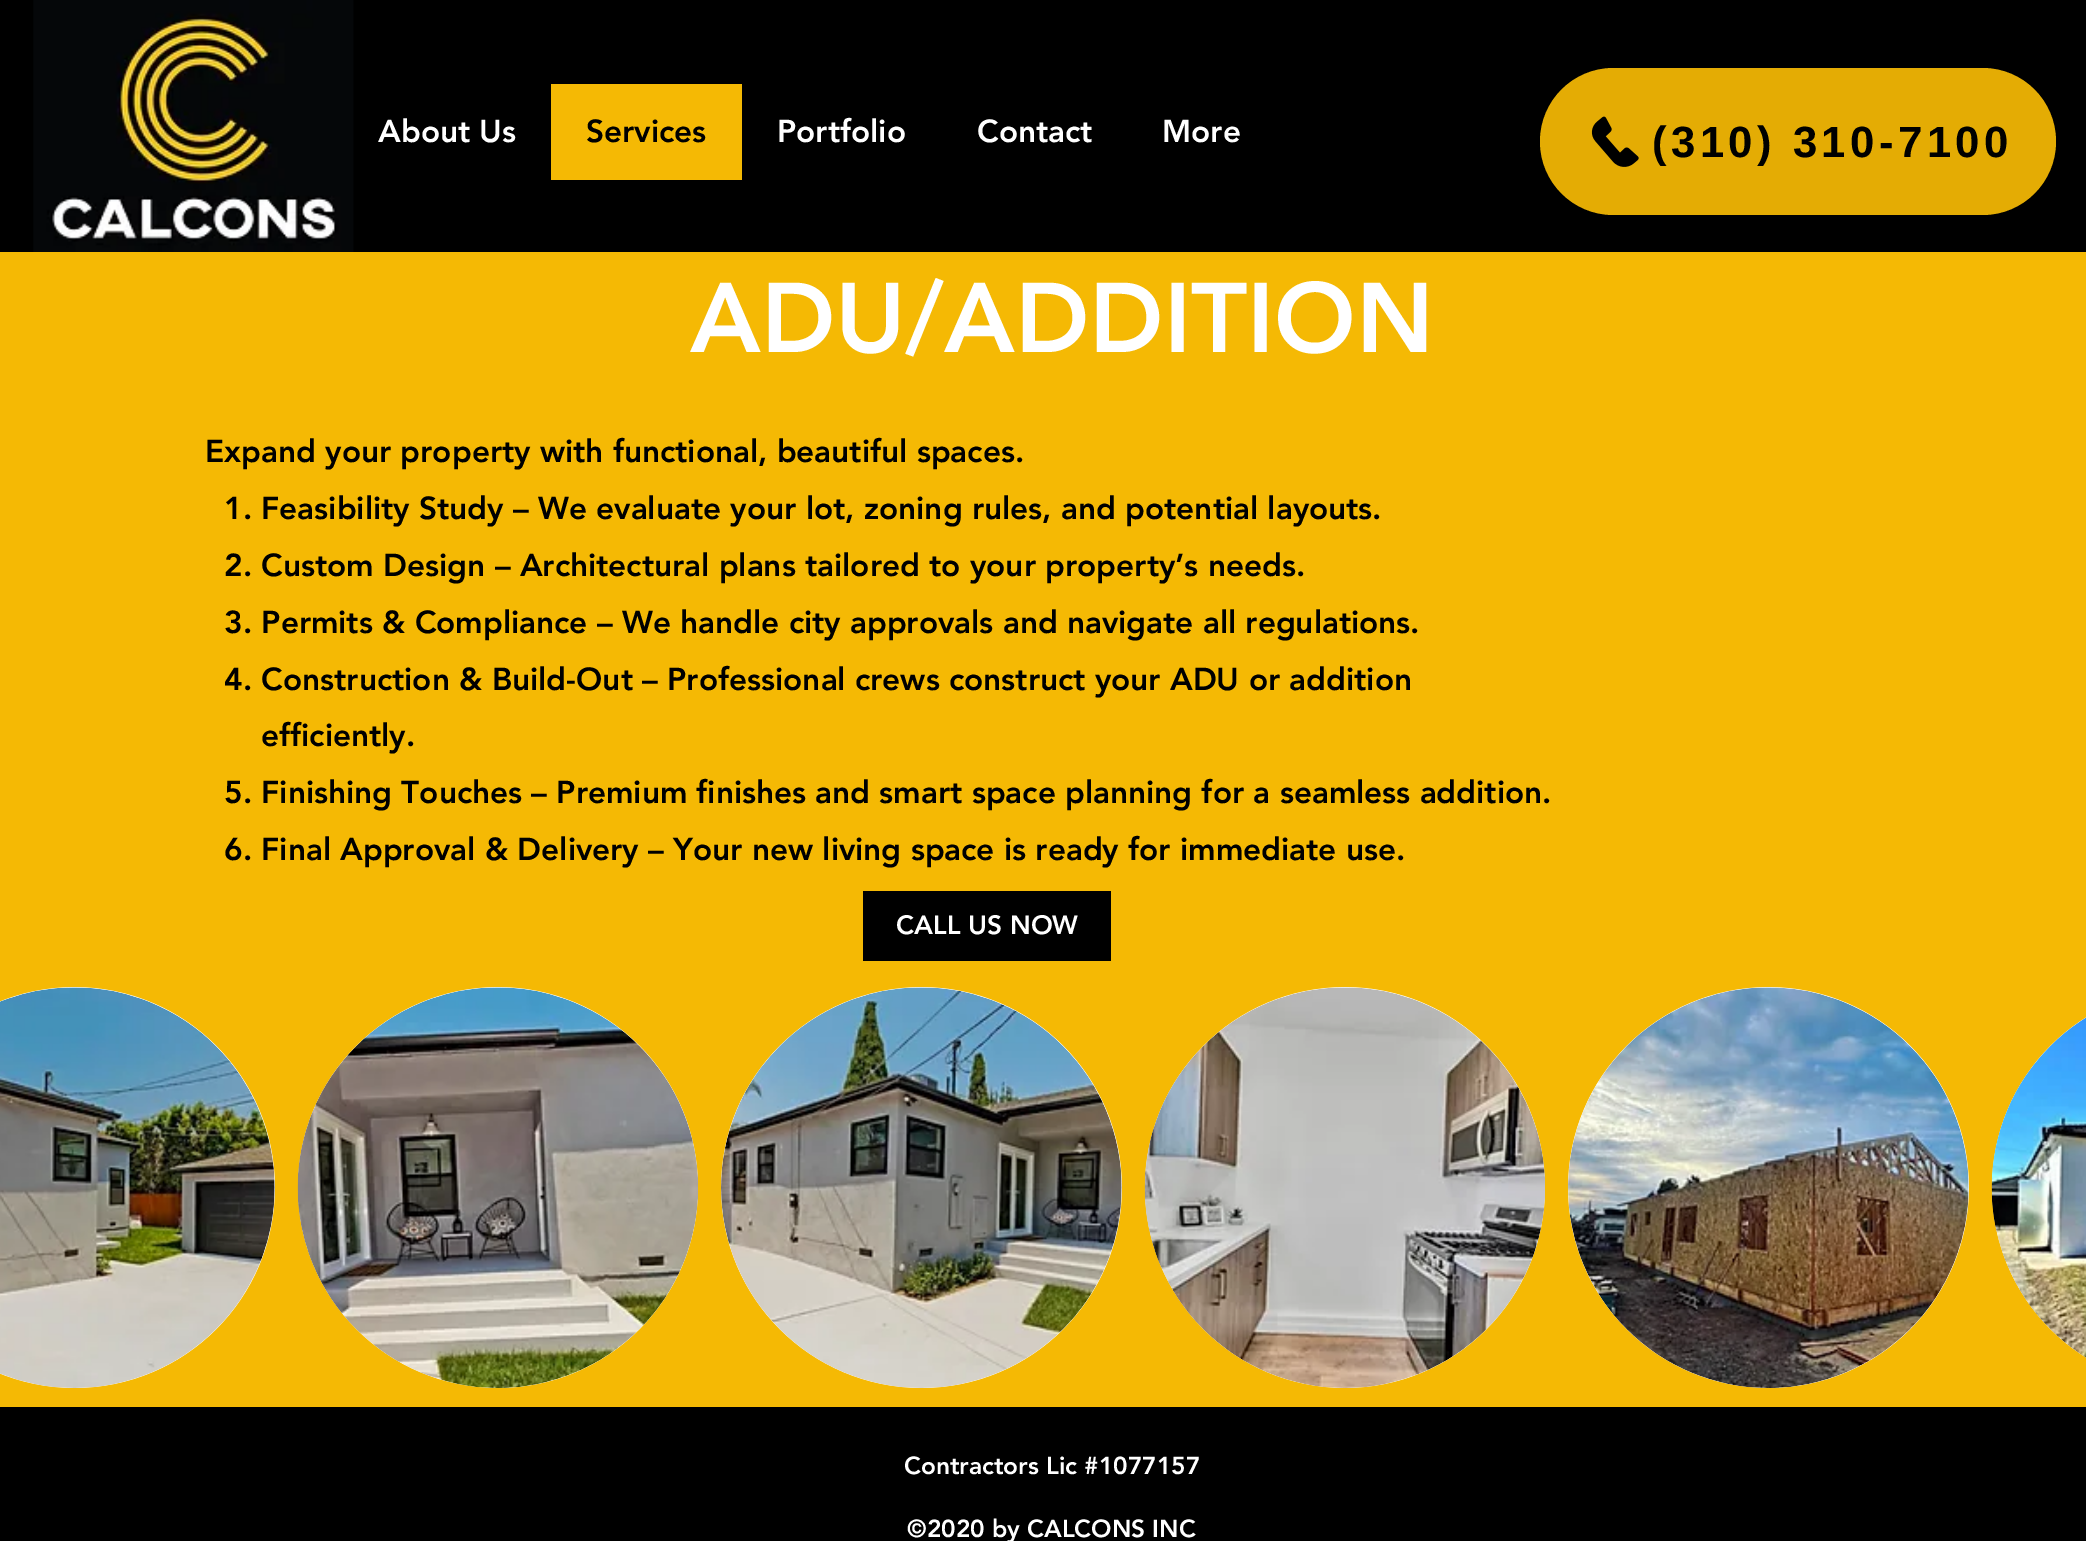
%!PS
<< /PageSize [2086 1541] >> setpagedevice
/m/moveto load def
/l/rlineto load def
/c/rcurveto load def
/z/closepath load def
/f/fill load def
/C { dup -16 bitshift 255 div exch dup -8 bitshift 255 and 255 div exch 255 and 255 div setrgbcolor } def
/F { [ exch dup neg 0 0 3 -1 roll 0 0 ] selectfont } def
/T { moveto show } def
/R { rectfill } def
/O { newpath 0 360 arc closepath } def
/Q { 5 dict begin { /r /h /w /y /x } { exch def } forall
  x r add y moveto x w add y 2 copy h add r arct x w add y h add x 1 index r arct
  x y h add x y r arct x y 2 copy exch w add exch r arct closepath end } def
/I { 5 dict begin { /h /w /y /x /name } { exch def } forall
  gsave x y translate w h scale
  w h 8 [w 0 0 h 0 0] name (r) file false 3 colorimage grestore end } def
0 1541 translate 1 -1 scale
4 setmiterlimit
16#F5B904 C
0 0 2086 1541 R
16#000000 C
0 0 2086 252 R
(1.rgb) 33 0 321 252 I
/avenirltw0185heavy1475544-Black 31.5 F
16#FFFFFF C
(About Us) 378 142 T
16#F5B904 C
551 84 191 96 R
16#000000 C
(Services) 586 142 T
16#FFFFFF C
(Portfolio) 777 142 T
(Contact) 977 142 T
(More) 1162 142 T
16#E4AC04 C
1540 68 516 147 73.5 Q f
(2.rgb) 1591 116 48 51 I
/LiberationSans-Bold 43.75 F
16#000000 C
1652 157 m 4.4 0 (\(310\) 310-7100) ashow
/avenirltw0185heavy1475544-Black 98 F
16#FFFFFF C
(ADU/ADDITION) 690 352 T
/avenirltw0185heavy1475544-Black 31.5 F
16#000000 C
(Expand your property with functional, beautiful spaces.) 205 462 T
(1. Feasibility Study – We evaluate your lot, zoning rules, and potential layouts.) 224 519 T
(2. Custom Design – Architectural plans tailored to your property’s needs.) 224 576 T
(3. Permits & Compliance – We handle city approvals and navigate all regulations.) 224 633 T
(4. Construction & Build-Out – Professional crews construct your ADU or addition) 224 690 T
(efficiently.) 261 746 T
(5. Finishing Touches – Premium finishes and smart space planning for a seamless addition.) 224 803 T
(6. Final Approval & Delivery – Your new living space is ready for immediate use.) 224 860 T
863 891 248 70 R
/avenirltw0185heavy1475544-Black 26.25 F
16#FFFFFF C
(CALL US NOW) 896 934 T
74.5 1187.5 200.5 O f
(3.rgb) 0 987 275 401 I
298 987 400 401 200 Q f
(4.rgb) 297 987 401 401 I
921.5 1187.5 200.5 O f
(5.rgb) 721 987 401 401 I
1145 987 400 401 200 Q f
(6.rgb) 1144 987 401 401 I
1768.5 1187.5 200.5 O f
(7.rgb) 1568 987 401 401 I
2192 987 m -106 0 l 0 401 l 106 0 l -110.5 0 -200 -89.5 -200 -200 c 0 -1 l 0 -110.5 89.5 -200 200 -200 c z f
(8.rgb) 1991 1017 95 341 I
16#000000 C
0 1407 2086 134 R
/avenirltw0185heavy1475544-Black 24.5 F
16#FFFFFF C
(Contractors Lic #1077157) 904 1474 T
(©2020 by CALCONS INC) 907 1537 T
showpage
